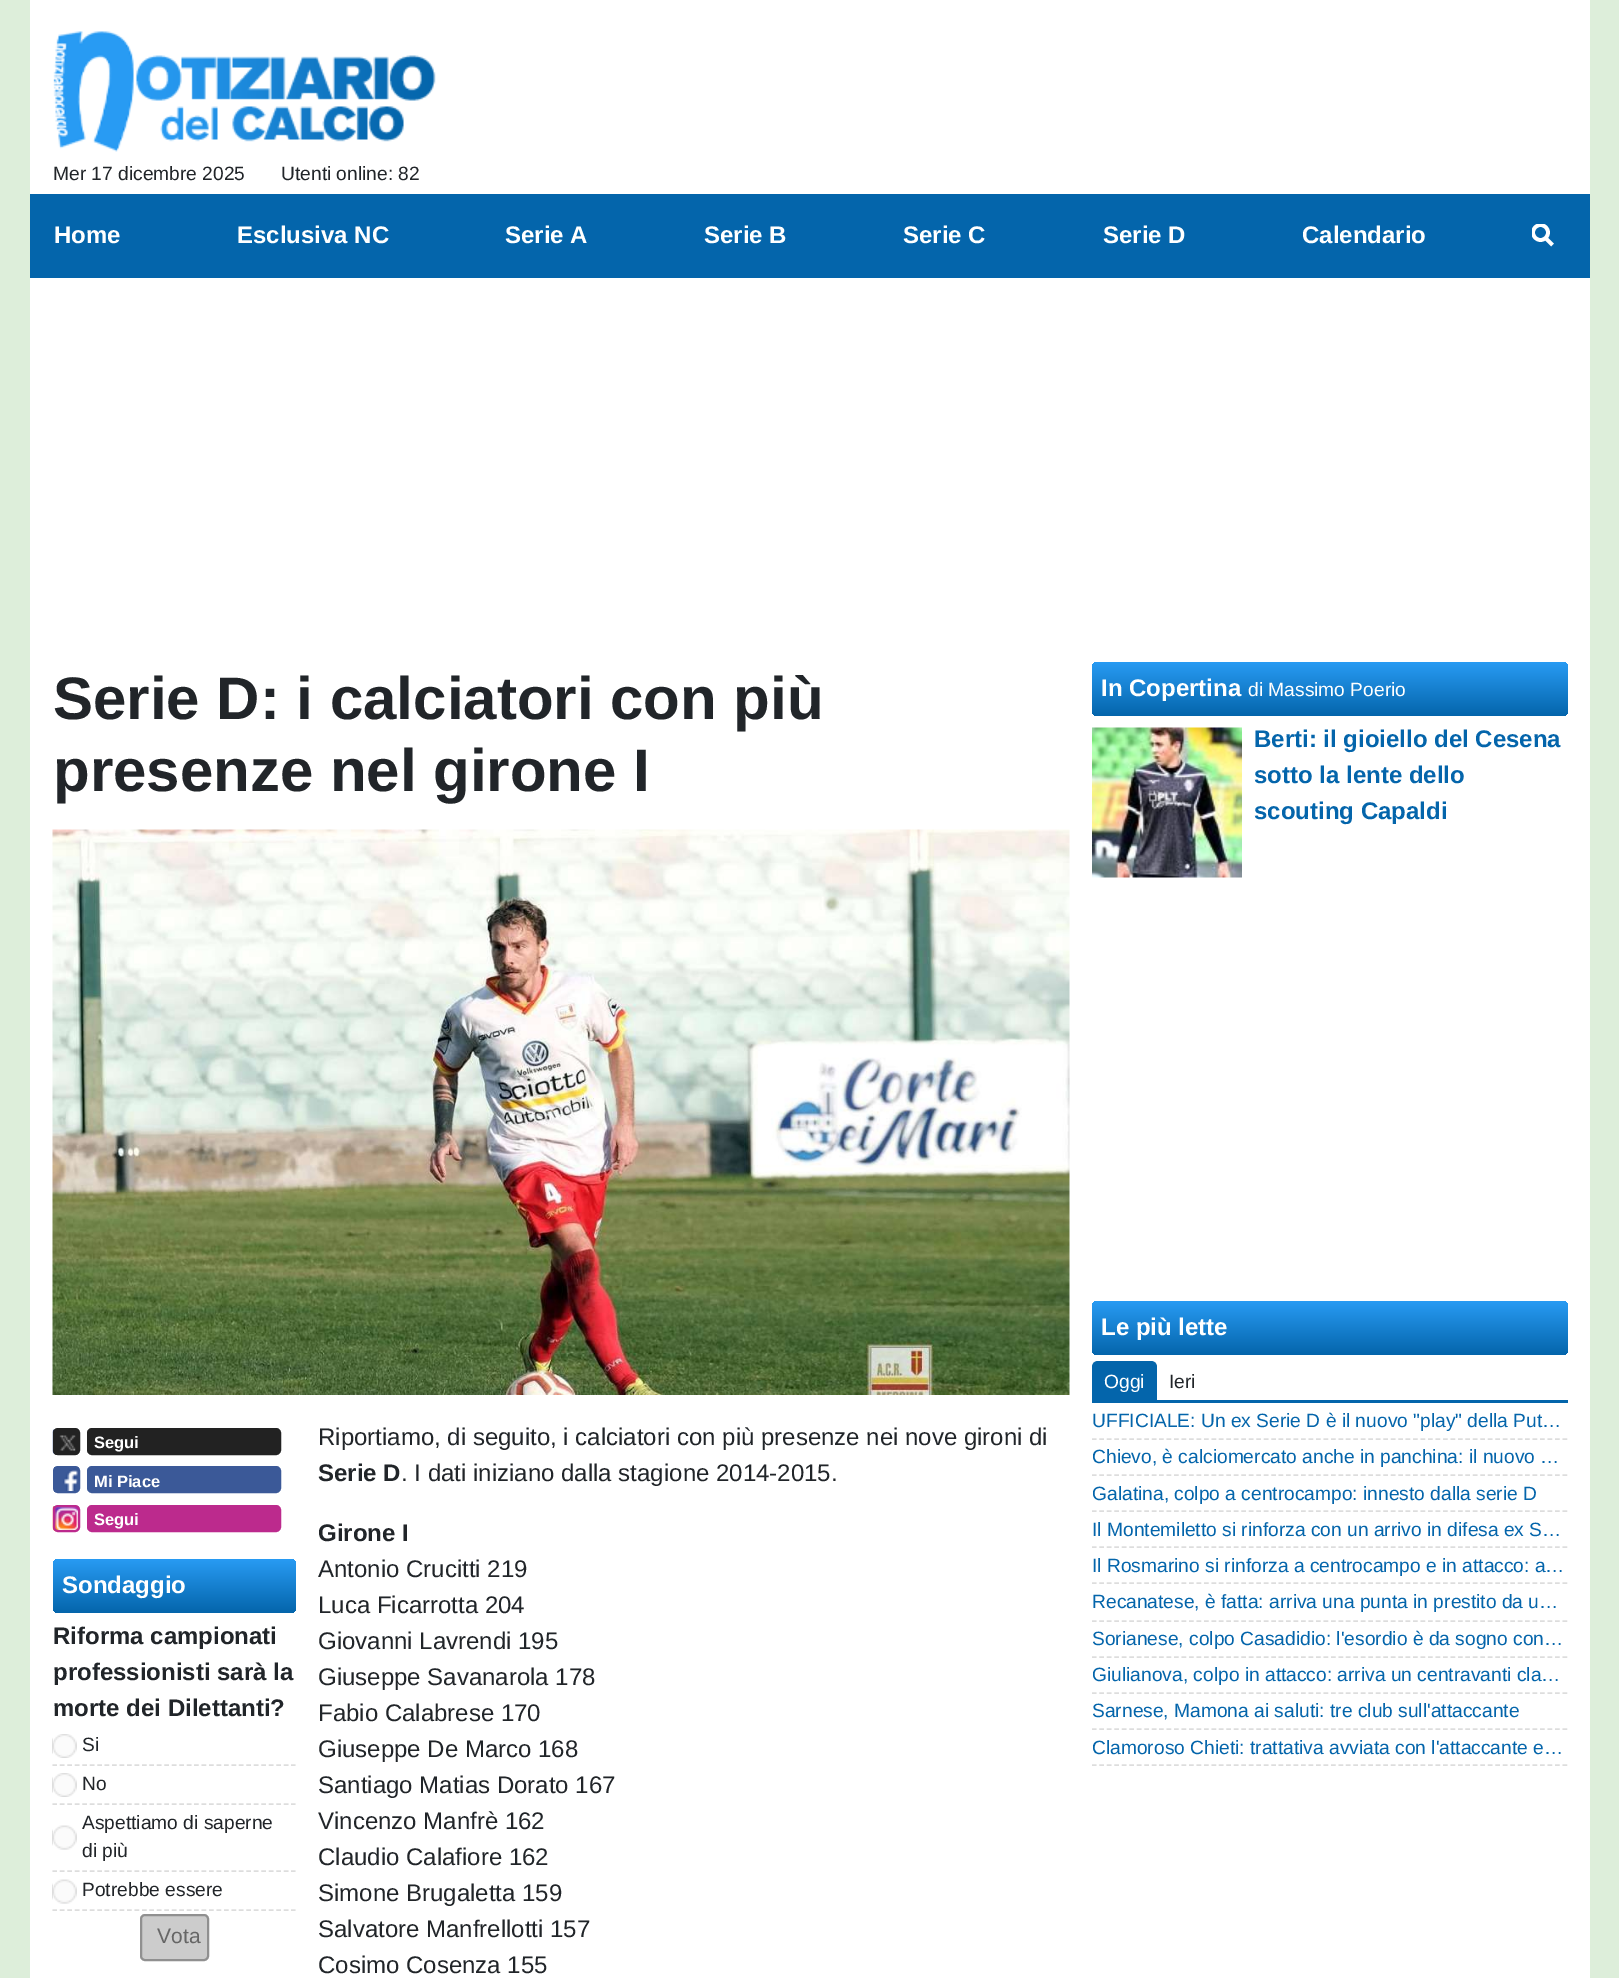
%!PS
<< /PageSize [1619 1978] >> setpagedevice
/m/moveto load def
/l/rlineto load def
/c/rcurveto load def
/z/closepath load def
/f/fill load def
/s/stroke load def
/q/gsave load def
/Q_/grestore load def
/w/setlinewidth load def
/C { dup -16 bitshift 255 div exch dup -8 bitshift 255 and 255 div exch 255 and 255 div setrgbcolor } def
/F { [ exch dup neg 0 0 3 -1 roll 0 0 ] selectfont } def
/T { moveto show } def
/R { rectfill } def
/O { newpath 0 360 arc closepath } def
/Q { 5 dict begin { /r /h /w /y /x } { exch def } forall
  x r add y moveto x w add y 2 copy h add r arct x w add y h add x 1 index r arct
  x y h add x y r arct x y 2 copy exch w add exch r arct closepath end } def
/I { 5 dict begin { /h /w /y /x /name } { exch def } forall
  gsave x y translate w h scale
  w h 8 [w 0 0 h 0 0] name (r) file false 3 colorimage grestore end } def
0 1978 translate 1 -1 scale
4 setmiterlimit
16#DDEEDA C
0 0 1619 1978 R
16#FFFFFF C
30 0 1560 1978 R
(1.rgb) 53 31 383 121 I
/LiberationSans-Regular 19.2 F
16#212529 C
(Mer 17 dicembre 2025) 53 180 T
(Utenti online: 82) 281 180 T
16#0465AB C
30 194 1560 84 R
/LiberationSans-Bold 24 F
16#FFFFFF C
(Home) 54 243 T
(Esclusiva NC) 237 243 T
(Serie A) 505 243 T
(Serie B) 704 243 T
(Serie C) 903 243 T
(Serie D) 1103 243 T
(Calendario) 1302 243 T
3.7 w
1552.5 245 m -7.5 -7.5 l s
q
1532 224 21 24 rectclip
1540.5 232.5 7.5 O s
Q_
/LiberationSans-Bold 60 F
16#212529 C
(Serie D: i calciatori con più) 53 719 T
(presenze nel girone I) 53 791 T
(2.rgb) 52 829 1018 566 I
(3.rgb) 52 1429 28 26 I
16#222222 C
2 w
54 1429 25 25 4 Q s
88 1429 192 25 4 Q q f Q_
s
/LiberationSans-Bold 16.5 F
16#FFFFFF C
(Segui) 94 1448 T
(4.rgb) 54 1467 26 26 I
16#3B5998 C
54 1467 25 25 4 Q s
88 1467 192 25 4 Q q f Q_
s
16#FFFFFF C
(Mi Piace) 94 1487 T
(5.rgb) 52 1506 28 26 I
16#BC2A8D C
54 1506 25 25 4 Q s
88 1506 192 25 4 Q q f Q_
s
16#FFFFFF C
(Segui) 94 1525 T
q 53 1559 243 54 5 Q clip newpath
<< /ShadingType 2 /ColorSpace /DeviceRGB /Coords [174 1559 174 1613] /Extend [true true] /Function << /FunctionType 2 /Domain [0 1] /C0 [.157 .608 .953] /C1 [.016 .396 .671] /N 1 >> >> shfill Q_
/LiberationSans-Bold 24 F
(Sondaggio) 62 1593 T
16#212529 C
(Riforma campionati) 53 1644 T
(professionisti sarà la) 53 1680 T
(morte dei Dilettanti?) 53 1716 T
16#DDDDDD C
1.5 w
[4.5 2.96] 0 setdash
52.5 1765 m 243 0 l s
(6.rgb) 52 1734 25 24 I
/LiberationSans-Regular 19.2 F
16#212529 C
(Si) 82 1751 T
16#DDDDDD C
52.5 1804 m 243 0 l s
(6.rgb) 52 1773 25 24 I
16#212529 C
(No) 82 1790 T
16#DDDDDD C
52.5 1871 m 243 0 l s
(7.rgb) 52 1825 25 25 I
16#212529 C
(Aspettiamo di saperne) 82 1829 T
(di più) 82 1857 T
16#DDDDDD C
52.5 1910 m 243 0 l s
(7.rgb) 52 1879 25 25 I
16#212529 C
(Potrebbe essere) 82 1896 T
16#CCCCCC C
141 1915 67 45 4 Q q f Q_
16#909090 C
2 w
[] 0 setdash
s
/LiberationSans-Regular 21 F
16#666666 C
(Vota) 157 1943 T
/LiberationSans-Regular 24 F
16#212529 C
(Riportiamo, di seguito, i calciatori con più presenze nei nove gironi di) 318 1445 T
/LiberationSans-Bold 24 F
(Serie D) 318 1481 T
/LiberationSans-Regular 24 F
(. I dati iniziano dalla stagione 2014-2015.) 401 1481 T
/LiberationSans-Bold 24 F
(Girone I) 318 1541 T
/LiberationSans-Regular 24 F
(Antonio Crucitti 219) 318 1577 T
(Luca Ficarrotta 204) 318 1613 T
(Giovanni Lavrendi 195) 318 1649 T
(Giuseppe Savanarola 178) 318 1685 T
(Fabio Calabrese 170) 318 1721 T
(Giuseppe De Marco 168) 318 1757 T
(Santiago Matias Dorato 167) 318 1793 T
(Vincenzo Manfrè 162) 318 1829 T
(Claudio Calafiore 162) 318 1865 T
(Simone Brugaletta 159) 318 1901 T
(Salvatore Manfrellotti 157) 318 1937 T
(Cosimo Cosenza 155) 318 1973 T
q 1092 662 476 54 5 Q clip newpath
<< /ShadingType 2 /ColorSpace /DeviceRGB /Coords [1330 662 1330 716] /Extend [true true] /Function << /FunctionType 2 /Domain [0 1] /C0 [.157 .608 .953] /C1 [.016 .396 .671] /N 1 >> >> shfill Q_
/LiberationSans-Bold 24 F
16#FFFFFF C
(In Copertina) 1101 696 T
/LiberationSans-Regular 19.2 F
(di Massimo Poerio) 1248 696 T
(8.rgb) 1092 727 150 151 I
/LiberationSans-Bold 24 F
16#0465AB C
(Berti: il gioiello del Cesena) 1254 747 T
(sotto la lente dello) 1254 783 T
(scouting Capaldi) 1254 819 T
q 1092 1301 476 54 5 Q clip newpath
<< /ShadingType 2 /ColorSpace /DeviceRGB /Coords [1330 1301 1330 1355] /Extend [true true] /Function << /FunctionType 2 /Domain [0 1] /C0 [.157 .608 .953] /C1 [.016 .396 .671] /N 1 >> >> shfill Q_
16#FFFFFF C
(Le più lette) 1101 1335 T
16#0465AB C
1092 1400 476 3 R
1098 1361 m 53 0 l 3.5 0 6 2.5 6 6 c 0 34 l -65 0 l 0 -34 l 0 -3.5 2.5 -6 6 -6 c z f
/LiberationSans-Regular 19.2 F
16#FFFFFF C
(Oggi) 1104 1388 T
16#212529 C
(Ieri) 1169 1388 T
16#DDDDDD C
1.5 w
[4.5 2.97] 0 setdash
1092 1439 m 475.5 0 l s
16#0465AB C
(UFFICIALE: Un ex Serie D è il nuovo "play" della Put…) 1092 1427 T
16#DDDDDD C
1092 1475 m 475.5 0 l s
16#0465AB C
(Chievo, è calciomercato anche in panchina: il nuovo …) 1092 1463 T
16#DDDDDD C
1092 1511 m 475.5 0 l s
16#0465AB C
(Galatina, colpo a centrocampo: innesto dalla serie D) 1092 1500 T
16#DDDDDD C
1092 1547 m 475.5 0 l s
16#0465AB C
(Il Montemiletto si rinforza con un arrivo in difesa ex S…) 1092 1536 T
16#DDDDDD C
1092 1583 m 475.5 0 l s
16#0465AB C
(Il Rosmarino si rinforza a centrocampo e in attacco: a…) 1092 1572 T
16#DDDDDD C
1092 1621 m 475.5 0 l s
16#0465AB C
(Recanatese, è fatta: arriva una punta in prestito da u…) 1092 1608 T
16#DDDDDD C
1092 1657 m 475.5 0 l s
16#0465AB C
(Sorianese, colpo Casadidio: l'esordio è da sogno con…) 1092 1645 T
16#DDDDDD C
1092 1693 m 475.5 0 l s
16#0465AB C
(Giulianova, colpo in attacco: arriva un centravanti cla…) 1092 1681 T
16#DDDDDD C
1092 1729 m 475.5 0 l s
16#0465AB C
(Sarnese, Mamona ai saluti: tre club sull'attaccante) 1092 1717 T
16#DDDDDD C
1092 1765 m 475.5 0 l s
16#0465AB C
(Clamoroso Chieti: trattativa avviata con l'attaccante e…) 1092 1754 T
showpage
